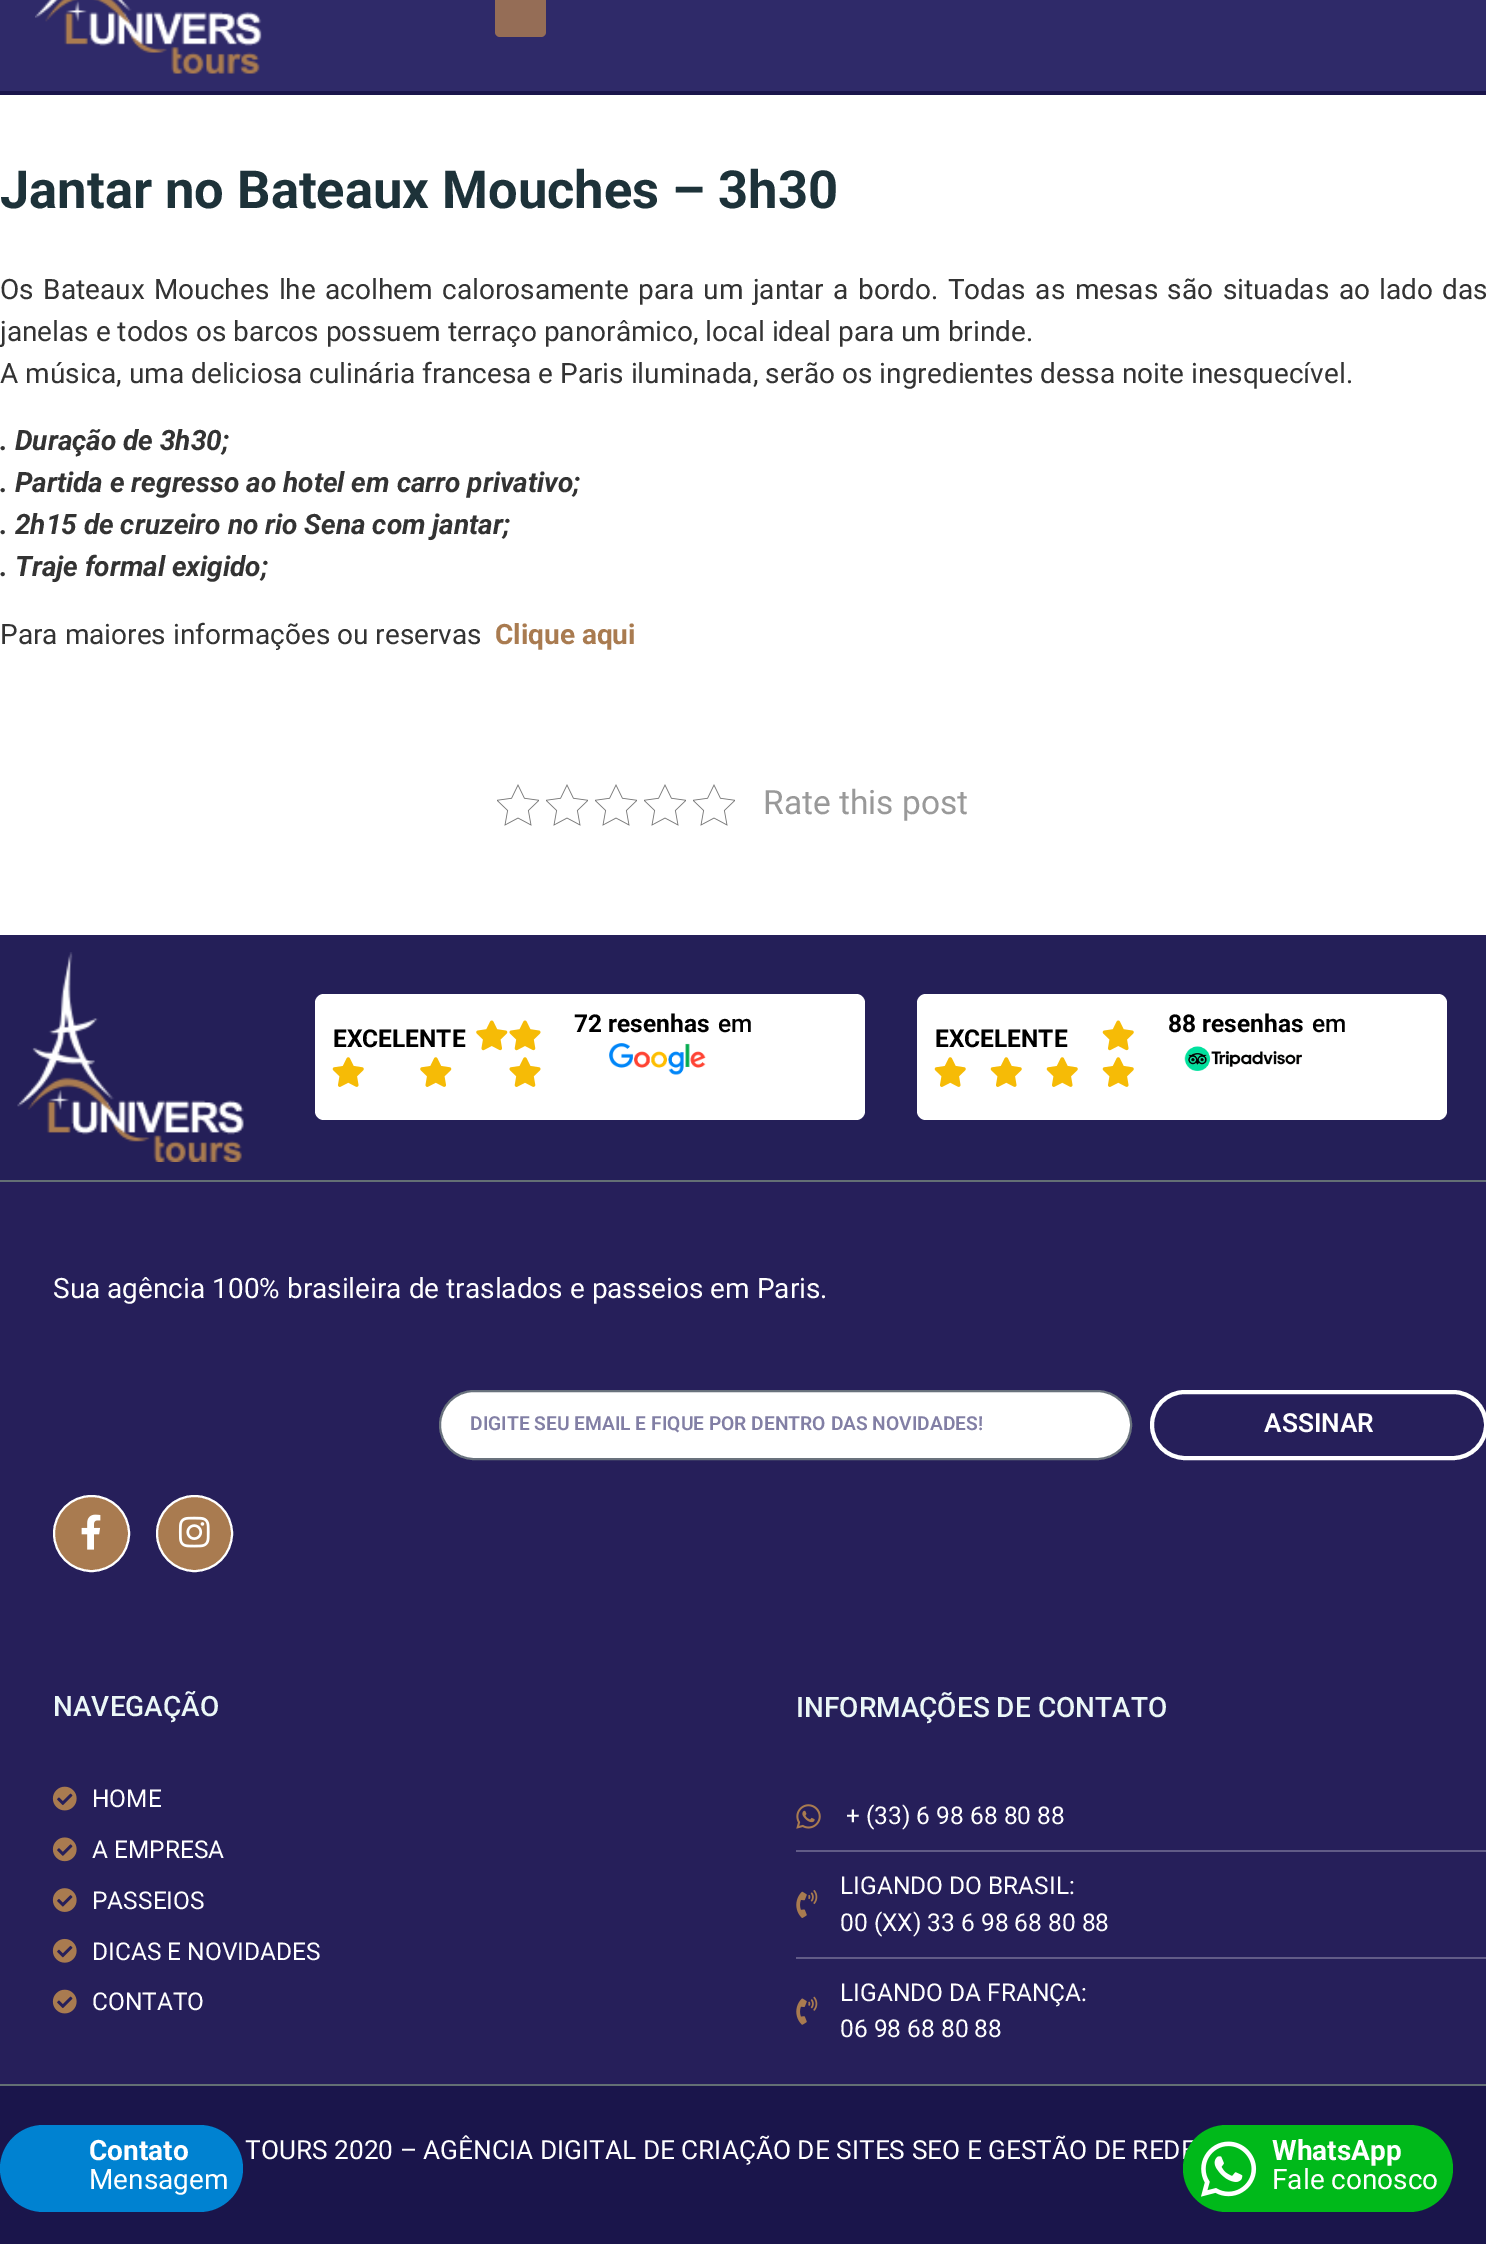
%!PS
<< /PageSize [1486 2246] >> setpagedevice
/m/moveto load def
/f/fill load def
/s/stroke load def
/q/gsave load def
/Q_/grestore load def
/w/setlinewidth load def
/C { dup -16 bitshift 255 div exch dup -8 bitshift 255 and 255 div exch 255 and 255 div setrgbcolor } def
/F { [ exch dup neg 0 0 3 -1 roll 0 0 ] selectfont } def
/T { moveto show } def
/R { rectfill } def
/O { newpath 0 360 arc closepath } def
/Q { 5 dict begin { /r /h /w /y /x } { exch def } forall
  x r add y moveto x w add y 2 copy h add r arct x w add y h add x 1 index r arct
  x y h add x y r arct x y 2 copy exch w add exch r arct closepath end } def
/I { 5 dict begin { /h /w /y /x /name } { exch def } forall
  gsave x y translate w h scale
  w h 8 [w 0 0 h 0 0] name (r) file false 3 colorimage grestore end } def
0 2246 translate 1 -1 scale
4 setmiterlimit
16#FFFFFF C
0 0 1486 2246 R
16#2F2A69 C
0 0 1486 91 R
16#1A154B C
0 91 1486 4 R
(1.rgb) 35 0 227 74 I
16#956D56 C
495 -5 51 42 5 Q f
/Roboto-Bold 52.5 F
16#1D3239 C
(Jantar no Bateaux Mouches – 3h30) 0 208 T
/Roboto-Regular 28 F
16#333333 C
0 299 m 2.5 0 32 (Os Bateaux Mouches lhe acolhem calorosamente para um jantar a bordo. Todas as mesas são situadas ao lado das) widthshow
(janelas e todos os barcos possuem terraço panorâmico, local ideal para um brinde.) 0 341 T
(A música, uma deliciosa culinária francesa e Paris iluminada, serão os ingredientes dessa noite inesquecível.) 0 383 T
/Roboto-BoldItalic 28 F
(. Duração de 3h30;) 0 450 T
(. Partida e regresso ao hotel em carro privativo;) 0 492 T
(. 2h15 de cruzeiro no rio Sena com jantar;) 0 534 T
(. Traje formal exigido;) 0 576 T
/Roboto-Regular 28 F
(Para maiores informações ou reservas) 0 644 T
/Roboto-Bold 28 F
16#A97B50 C
(Clique aqui) 495 644 T
(2.rgb) 497 784 42 42 I
(2.rgb) 546 784 42 42 I
(2.rgb) 595 784 42 42 I
(2.rgb) 644 784 42 42 I
(2.rgb) 693 784 42 42 I
/Roboto-Regular 33.5 F
16#999999 C
(Rate this post) 763 814 T
16#241F58 C
0 935 1486 245 R
(3.rgb) 17 952 227 210 I
16#FFFFFF C
315 994 550 126 9 Q f
/Roboto-Bold 24.5 F
16#000000 C
(72 resenhas) 574 1032 T
/Roboto-Medium 24.5 F
(em) 718 1032 T
(4.rgb) 609 1043 97 32 I
/Roboto-Bold 24.5 F
(EXCELENTE) 333 1047 T
(5.rgb) 476 1020 32 31 I
(6.rgb) 509 1020 32 31 I
(7.rgb) 332 1057 32 30 I
(8.rgb) 420 1057 32 30 I
(9.rgb) 509 1057 32 30 I
16#FFFFFF C
917 994 530 126 9 Q f
16#000000 C
(88 resenhas) 1168 1032 T
/Roboto-Medium 24.5 F
(em) 1312 1032 T
(10.rgb) 1184 1046 118 25 I
/Roboto-Bold 24.5 F
(EXCELENTE) 935 1047 T
(11.rgb) 1102 1020 32 31 I
(7.rgb) 934 1057 32 30 I
(7.rgb) 990 1057 32 30 I
(7.rgb) 1046 1057 32 30 I
(7.rgb) 1102 1057 32 30 I
16#261F5A C
0 1182 1486 902 R
16#636F74 C
0 1180 1486 2 R
0 2084 1486 2 R
/Roboto-Regular 28 F
16#FFFFFF C
(Sua agência 100% brasileira de traslados e passeios em Paris.) 53 1298 T
440 1391 691 68 34 Q q f Q_
16#69727D C
2 w
s
/Roboto-SemiBold 19.25 F
16#827FA5 C
(DIGITE SEU EMAIL E FIQUE POR DENTRO DAS NOVIDADES!) 470 1430 T
16#FFFFFF C
4 w
1152 1392 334 66 33 Q s
/Roboto-SemiBold 26.25 F
(ASSINAR) 1264 1432 T
16#A97B50 C
91.5 1533.5 37.5 O q f Q_
16#FFFFFF C
2 w
s
(12.rgb) 81 1514 20 36 I
16#A97B50 C
194.5 1533.5 37.5 O q f Q_
16#FFFFFF C
s
(13.rgb) 178 1516 32 32 I
/Roboto-Medium 28 F
16#EBF7F7 C
(NAVEGAÇÃO) 53 1716 T
(14.rgb) 52 1786 25 25 I
/Roboto-Regular 24.5 F
16#FFFFFF C
(HOME) 92 1807 T
(15.rgb) 52 1837 25 25 I
(A EMPRESA) 92 1858 T
(16.rgb) 52 1888 25 24 I
(PASSEIOS) 92 1909 T
(17.rgb) 52 1938 25 25 I
(DICAS E NOVIDADES) 92 1960 T
(14.rgb) 52 1989 25 25 I
(CONTATO) 92 2010 T
/Roboto-Medium 28 F
16#EBF7F7 C
(INFORMAÇÕES DE CONTATO) 796 1717 T
(18.rgb) 796 1804 25 25 I
/Roboto-Regular 24.5 F
16#FFFFFF C
(+ \(33\) 6 98 68 80 88) 846 1824 T
16#615B87 C
796 1850 690 2 R
(19.rgb) 796 1890 22 28 I
16#FFFFFF C
(LIGANDO DO BRASIL:) 840 1894 T
(00 \(XX\) 33 6 98 68 80 88) 840 1931 T
16#615B87 C
796 1957 690 2 R
(20.rgb) 796 1996 22 29 I
16#FFFFFF C
(LIGANDO DA FRANÇA:) 840 2001 T
(06 98 68 80 88) 840 2037 T
16#1A154B C
0 2086 1486 158 R
/Roboto-Regular 26.25 F
16#FFFFFF C
(TOURS 2020 – AGÊNCIA DIGITAL DE CRIAÇÃO DE SITES SEO E GESTÃO DE REDE) 245 2159 T
16#0082D1 C
0 2125 243 87 43.5 Q f
/Roboto-Bold 28 F
16#FFFFFF C
(Contato) 89 2160 T
/Roboto-Regular 28 F
(Mensagem) 89 2189 T
16#00B91A C
1183 2125 270 87 43.5 Q f
(21.rgb) 1201 2141 56 56 I
/Roboto-Bold 28 F
16#FFFFFF C
(WhatsApp) 1272 2160 T
/Roboto-Regular 28 F
(Fale conosco) 1272 2189 T
showpage
